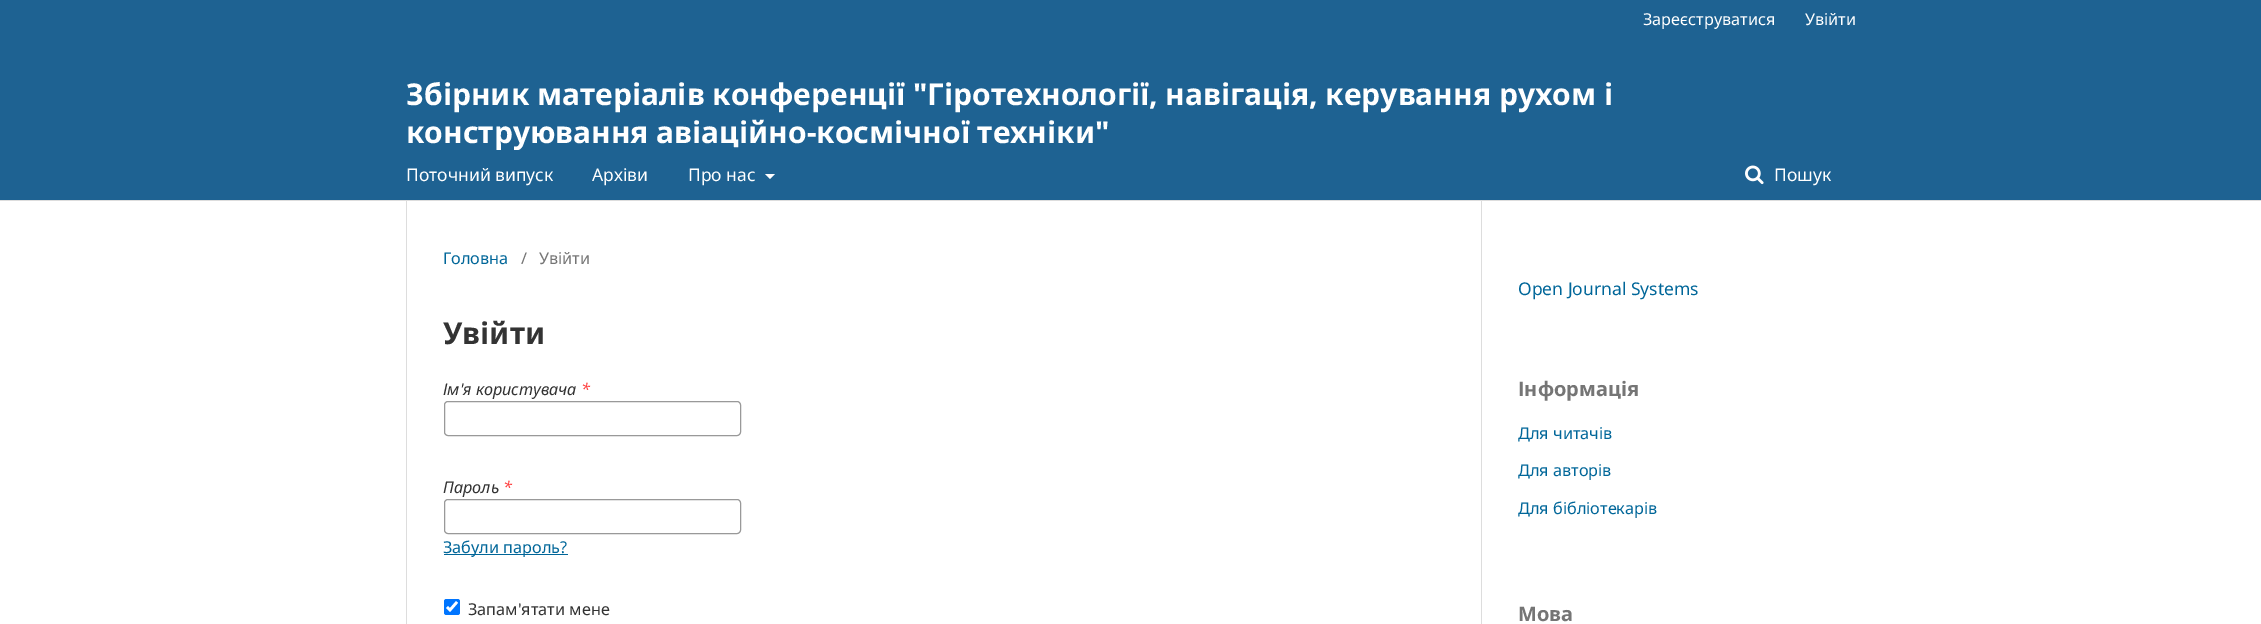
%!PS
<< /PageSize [2261 624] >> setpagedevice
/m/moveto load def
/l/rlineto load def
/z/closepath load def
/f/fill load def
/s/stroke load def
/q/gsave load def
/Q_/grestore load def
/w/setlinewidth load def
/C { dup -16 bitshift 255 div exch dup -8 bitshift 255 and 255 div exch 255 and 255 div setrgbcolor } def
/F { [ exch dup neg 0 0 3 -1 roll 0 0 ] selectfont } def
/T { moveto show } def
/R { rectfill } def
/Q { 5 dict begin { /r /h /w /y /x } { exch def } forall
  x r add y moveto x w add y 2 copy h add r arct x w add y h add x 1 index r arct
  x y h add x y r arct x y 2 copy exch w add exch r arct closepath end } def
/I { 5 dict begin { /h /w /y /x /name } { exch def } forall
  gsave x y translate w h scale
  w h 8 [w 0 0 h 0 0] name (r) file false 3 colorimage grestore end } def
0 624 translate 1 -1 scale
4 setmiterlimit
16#FFFFFF C
0 0 2261 624 R
16#1E6292 C
0 0 2261 200 R
16#DDDDDD C
0 200 2261 1 R
/NotoSans-Regular 16.25 F
16#FFFFFF C
(Зареєструватися) 1643 25 T
(Увійти) 1805 25 T
/NotoSans-Regular 17.5 F
(Поточний випуск) 406 181 T
(Архіви) 592 181 T
(Про нас) 688 181 T
765 174 m 10 0 l -5 5 l z f
(1.rgb) 1745 165 19 20 I
(Пошук) 1774 181 T
/NotoSans-Bold 30 F
(Збірник матеріалів конференції "Гіротехнології, навігація, керування рухом і) 406 105 T
q
406 75 1450 75 rectclip
(конструювання авіаційно-космічної техніки") 406 143 T
Q_
16#DDDDDD C
406 201 1 423 R
/NotoSans-Regular 16.25 F
16#006699 C
(Головна) 443 264 T
16#757575 C
(/) 521 264 T
(Увійти) 539 264 T
/NotoSans-Bold 30 F
16#333333 C
(Увійти) 443 344 T
/NotoSans-Italic 16.25 F
(Ім'я користувача) 443 395 T
16#FF4040 C
(*) 581 395 T
16#999999 C
444.5 401.5 296 34 3.5 Q s
16#333333 C
(Пароль) 443 493 T
16#FF4040 C
(*) 503 493 T
16#999999 C
444.5 499.5 296 34 3.5 Q s
16#006699 C
444 554 124 1 R
/NotoSans-Regular 16.25 F
(Забули пароль?) 443 553 T
16#0075FF C
444 599 16 16 2.5 Q f
16#FFFFFF C
2.6 w
447 607 m 3 3 l 7 -8 l s
16#333333 C
(Запам'ятати мене) 468 615 T
16#DDDDDD C
1481 201 1 423 R
/NotoSans-Regular 17.5 F
16#006699 C
(Open Journal Systems) 1518 295 T
/NotoSans-Bold 20 F
16#757575 C
(Інформація) 1518 396 T
/NotoSans-Regular 16.25 F
16#006699 C
(Для читачів) 1518 439 T
(Для авторів) 1518 476 T
(Для бібліотекарів) 1518 514 T
/NotoSans-Bold 20 F
16#757575 C
(Мова) 1518 621 T
showpage
